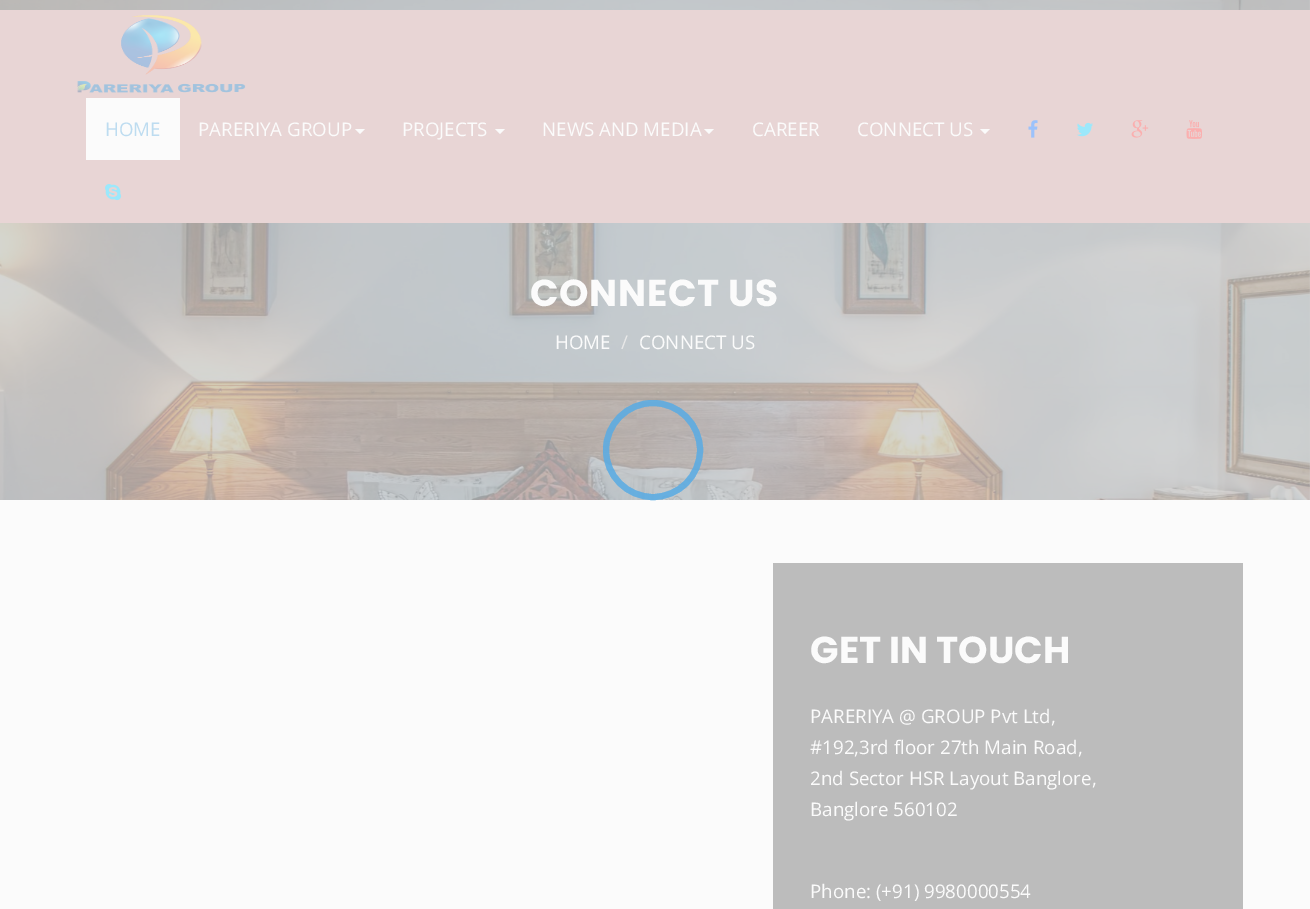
%!PS
<< /PageSize [1310 909] /PageUsesTransparency true >> setpagedevice
/m/moveto load def
/l/rlineto load def
/z/closepath load def
/f/fill load def
/s/stroke load def
/w/setlinewidth load def
/C { dup -16 bitshift 255 div exch dup -8 bitshift 255 and 255 div exch 255 and 255 div setrgbcolor } def
/F { [ exch dup neg 0 0 3 -1 roll 0 0 ] selectfont } def
/T { moveto show } def
/R { rectfill } def
/A { dup .setfillconstantalpha .setstrokeconstantalpha } def
/O { newpath 0 360 arc closepath } def
/I { 5 dict begin { /h /w /y /x /name } { exch def } forall
  gsave x y translate w h scale
  w h 8 [w 0 0 h 0 0] name (r) file false 3 colorimage grestore end } def
0 .pushpdf14devicefilter
0 909 translate 1 -1 scale
4 setmiterlimit
16#FBFBFB C
0 0 1310 909 R
(7.rgb) 0 0 1310 500 I
16#E8D5D5 C
0 10 1310 213 R
(1.rgb) 77 15 169 78 I
16#FBFBFB C
86 98 94 62 R
/OpenSans-Regular 18.75 F
16#BDDCF0 C
(HOME) 105 136 T
16#FBFBFB C
(PARERIYA GROUP) 198 136 T
355 129 m 10 0 l -5 5 l z f
(PROJECTS) 402 136 T
495 129 m 10 0 l -5 5 l z f
(NEWS AND MEDIA) 542 136 T
704 129 m 10 0 l -5 5 l z f
(CAREER) 752 136 T
(CONNECT US) 857 136 T
980 129 m 10 0 l -5 5 l z f
(2.rgb) 1028 120 10 18 I
(3.rgb) 1076 122 17 15 I
(4.rgb) 1131 120 18 18 I
(5.rgb) 1186 120 16 19 I
(6.rgb) 105 184 17 17 I
/Poppins-Bold 37.5 F
530 306 m .6 0 (CONNECT US) ashow
/OpenSans-Regular 18.75 F
(HOME) 555 349 T
16#E8E8E8 C
(/) 621 349 T
16#FBFBFB C
(CONNECT US) 639 349 T
0.63 A
16#59ABE3 C
6 w
653 450 47 O s
653 450 47 O s
1 A
16#BCBCBC C
773 563 470 346 R
/Poppins-Bold 37.5 F
16#FBFBFB C
(GET IN TOUCH) 810 663 T
/OpenSans-Regular 18.75 F
(PARERIYA @ GROUP Pvt Ltd,) 810 723 T
(#192,3rd floor 27th Main Road,) 810 754 T
(2nd Sector HSR Layout Banglore,) 810 785 T
(Banglore 560102) 810 816 T
(Phone: \(+91\) 9980000554) 810 898 T
.poppdf14devicefilter showpage
